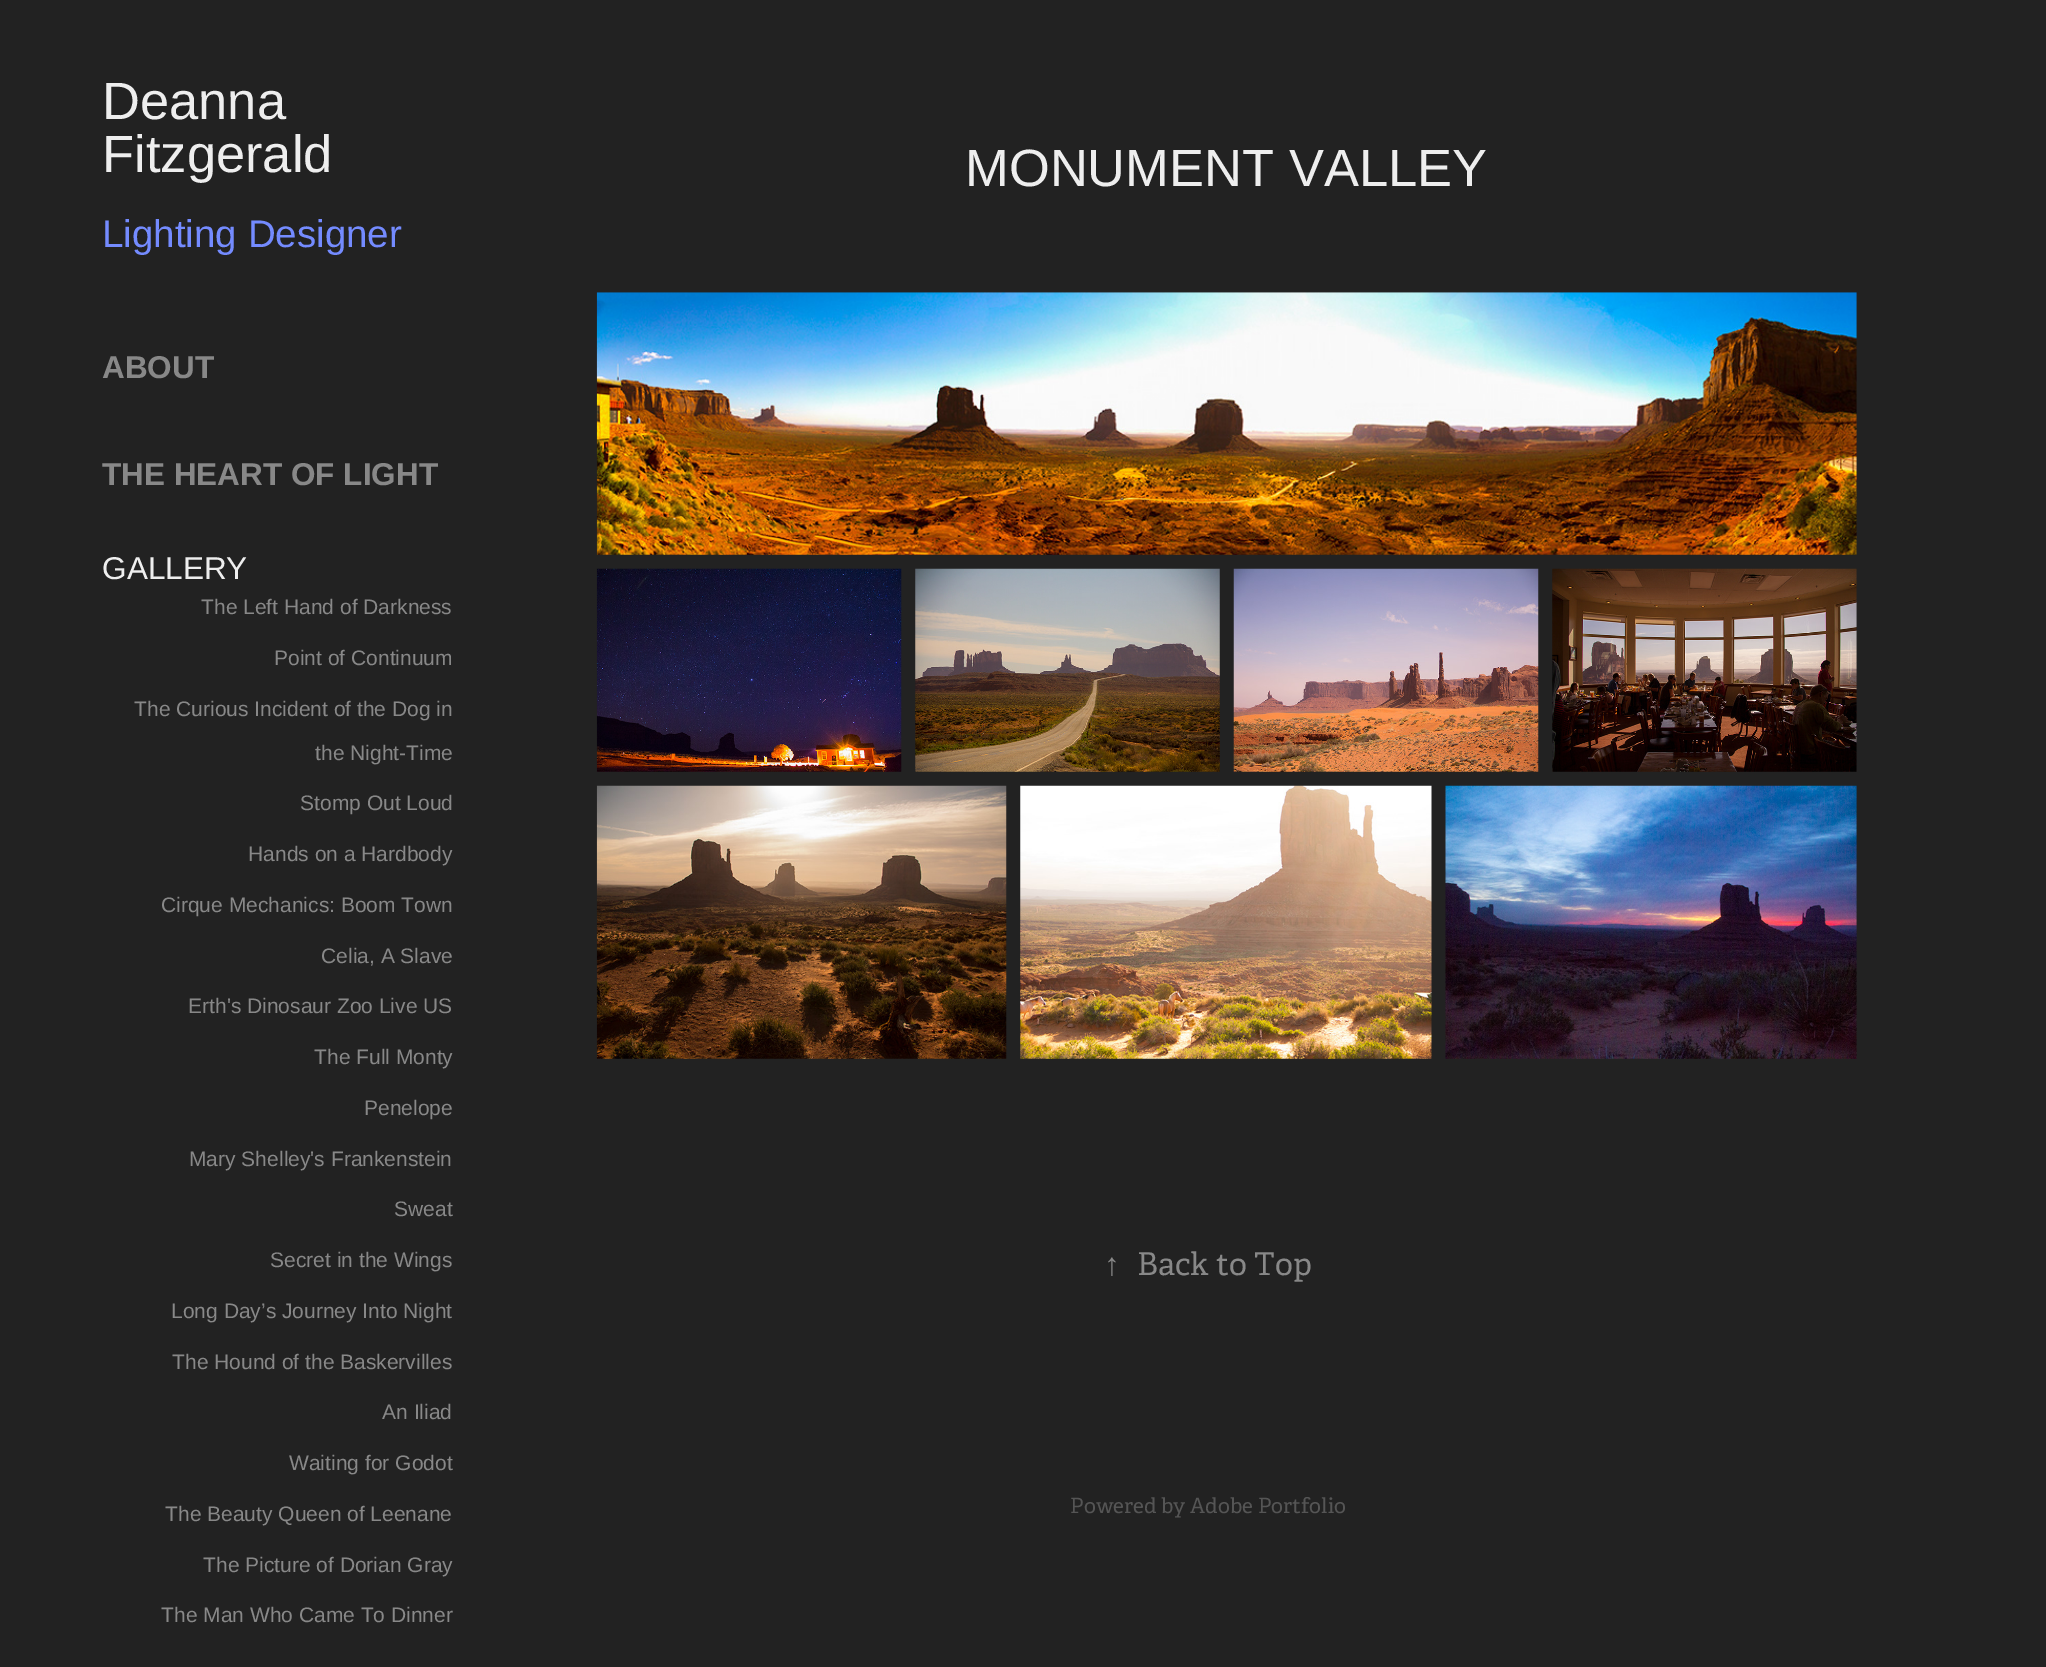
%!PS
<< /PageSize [2046 1667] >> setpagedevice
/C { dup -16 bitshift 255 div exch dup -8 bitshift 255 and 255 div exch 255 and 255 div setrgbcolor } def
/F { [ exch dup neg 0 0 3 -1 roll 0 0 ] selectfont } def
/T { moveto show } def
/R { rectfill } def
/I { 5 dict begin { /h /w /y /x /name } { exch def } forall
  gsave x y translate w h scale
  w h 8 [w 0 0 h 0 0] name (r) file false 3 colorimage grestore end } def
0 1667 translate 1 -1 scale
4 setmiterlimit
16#222222 C
0 0 2046 1667 R
/LiberationSans-Regular 52.5 F
16#EEEEEE C
(Deanna) 102 119 T
(Fitzgerald) 102 172 T
/LiberationSans-Regular 38.5 F
16#748BFF C
(Lighting Designer) 102 247 T
/LiberationSans-Bold 31.5 F
16#888888 C
(ABOUT) 102 378 T
(THE HEART OF LIGHT) 102 485 T
/LiberationSans-Regular 31.5 F
16#EEEEEE C
(GALLERY) 102 579 T
/LiberationSans-Regular 21 F
16#888888 C
(The Left Hand of Darkness) 201 614 T
(Point of Continuum) 274 665 T
(The Curious Incident of the Dog in) 134 716 T
(the Night-Time) 315 760 T
(Stomp Out Loud) 300 810 T
(Hands on a Hardbody) 248 861 T
(Cirque Mechanics: Boom Town) 161 912 T
(Celia, A Slave) 321 963 T
(Erth's Dinosaur Zoo Live US) 188 1013 T
(The Full Monty) 314 1064 T
(Penelope) 364 1115 T
(Mary Shelley's Frankenstein) 189 1166 T
(Sweat) 394 1216 T
(Secret in the Wings) 270 1267 T
(Long Day’s Journey Into Night) 171 1318 T
(The Hound of the Baskervilles) 172 1369 T
(An Iliad) 382 1419 T
(Waiting for Godot) 289 1470 T
(The Beauty Queen of Leenane) 165 1521 T
(The Picture of Dorian Gray) 203 1572 T
(The Man Who Came To Dinner) 161 1622 T
/LiberationSans-Regular 52.5 F
16#EEEEEE C
(MONUMENT VALLEY) 965 186 T
(1.rgb) 596 292 1261 263 I
(2.rgb) 596 568 306 204 I
(3.rgb) 915 568 305 204 I
(4.rgb) 1233 568 306 204 I
(5.rgb) 1552 568 305 204 I
(6.rgb) 596 785 411 274 I
(7.rgb) 1020 785 412 274 I
(8.rgb) 1445 785 412 274 I
/LiberationSerif-Regular 31.5 F
16#888888 C
(↑) 1104 1275 T
/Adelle-Regular 31.5 F
(Back to Top) 1137 1275 T
/Adelle-Regular 21 F
16#555555 C
(Powered by Adobe Portfolio) 1070 1513 T
showpage
